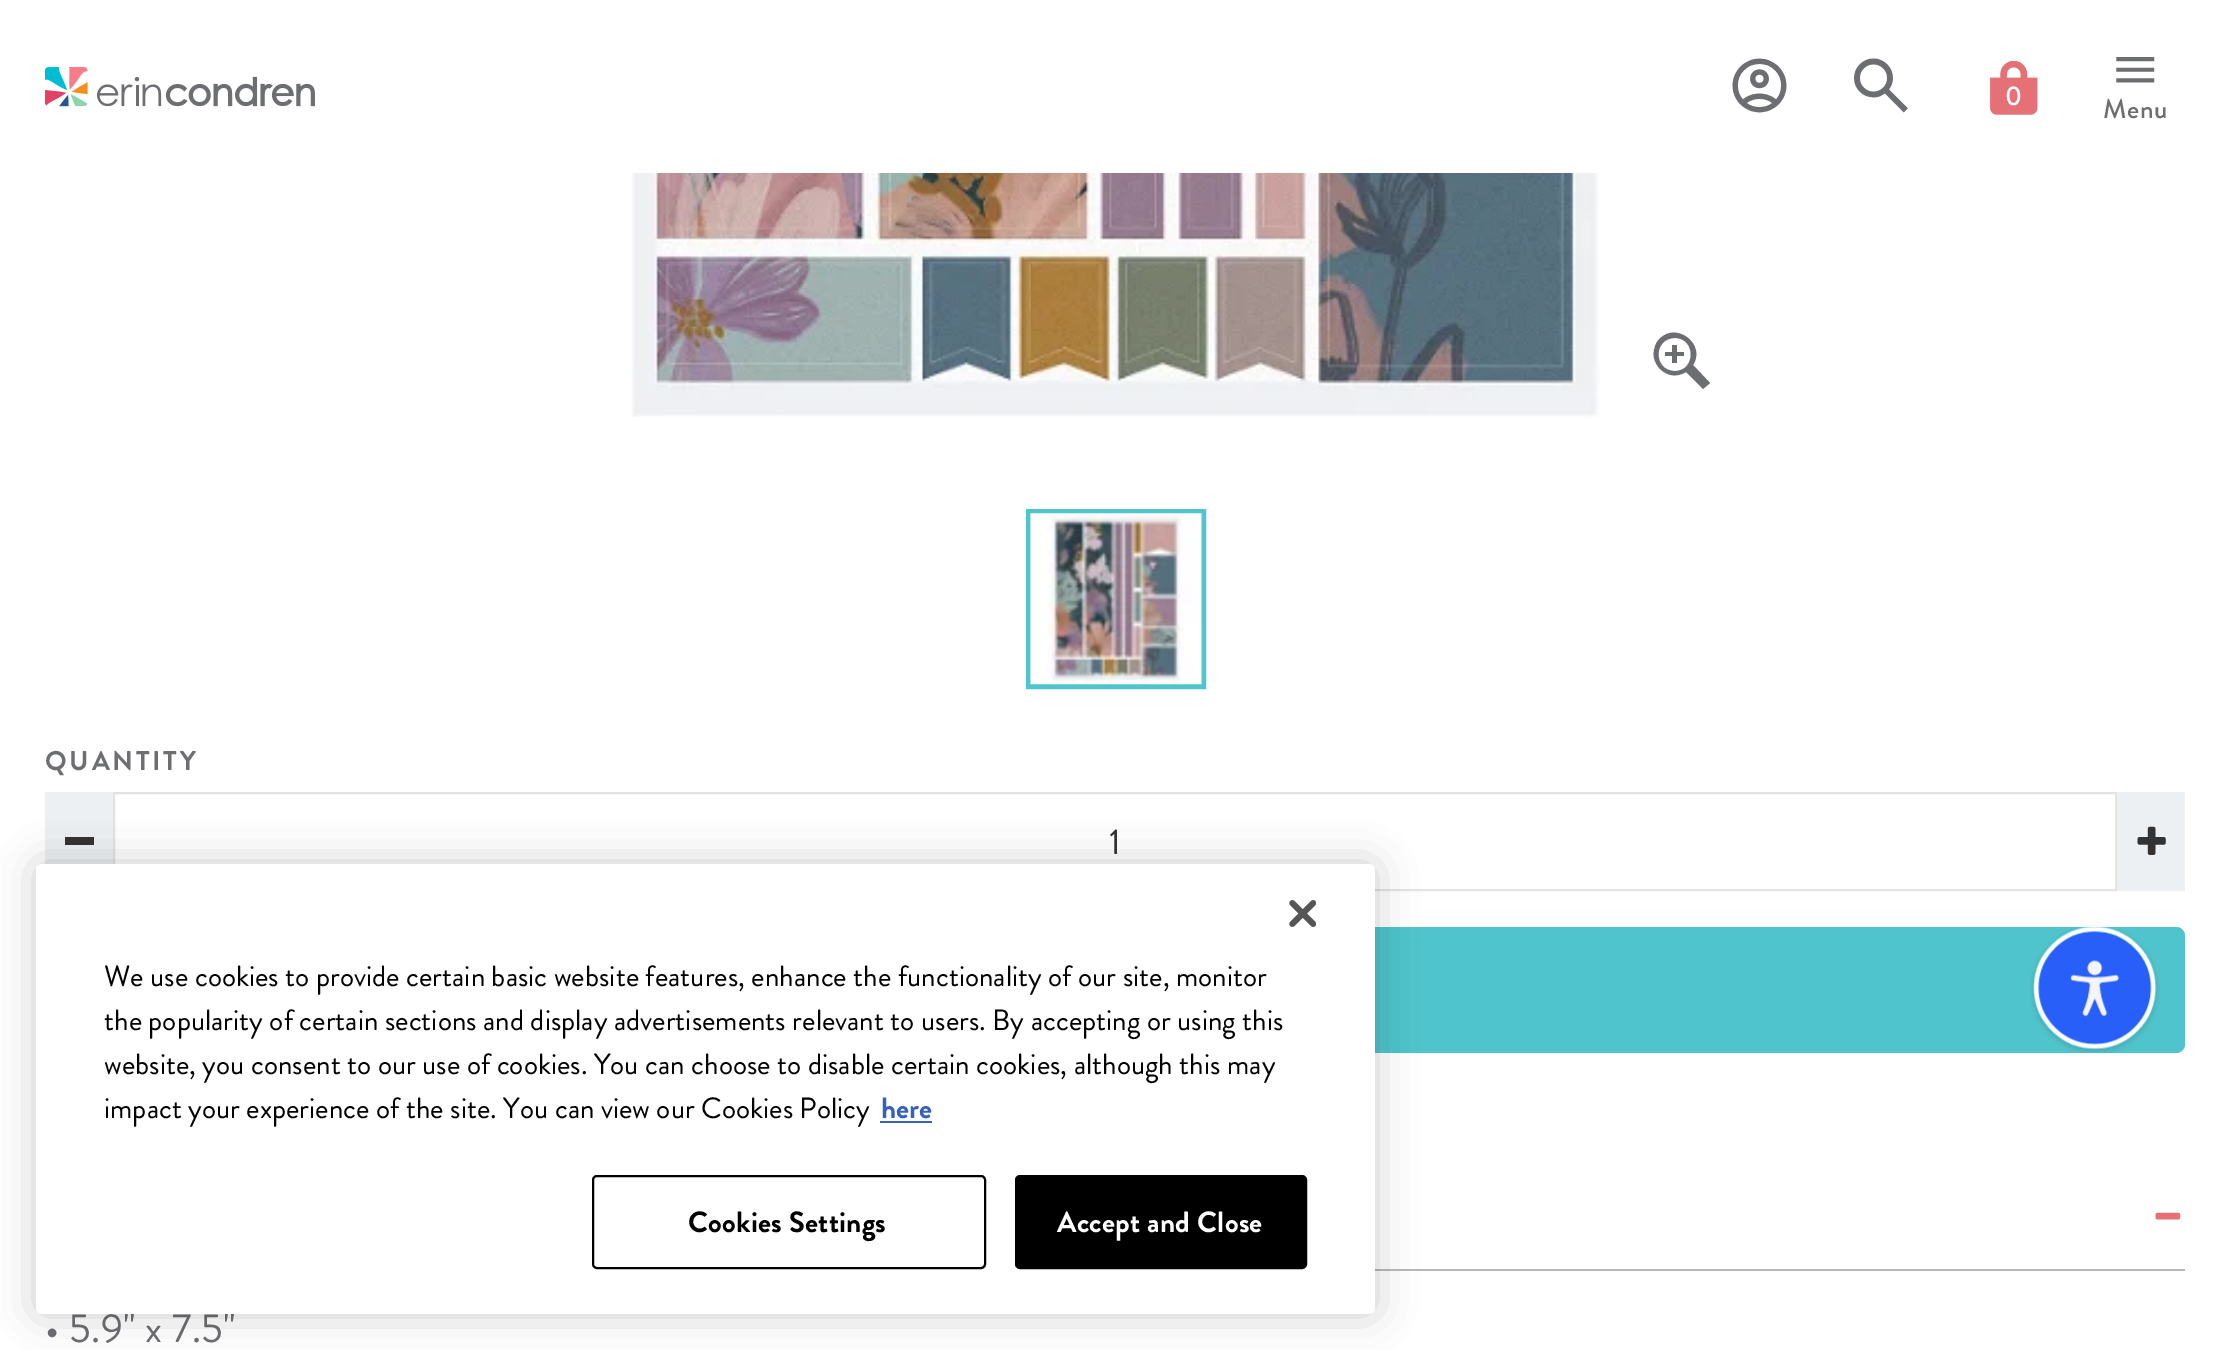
%!PS
<< /PageSize [2228 1350] /PageUsesTransparency true >> setpagedevice
/m/moveto load def
/l/rlineto load def
/c/rcurveto load def
/z/closepath load def
/f/fill load def
/s/stroke load def
/q/gsave load def
/Q_/grestore load def
/w/setlinewidth load def
/C { dup -16 bitshift 255 div exch dup -8 bitshift 255 and 255 div exch 255 and 255 div setrgbcolor } def
/F { [ exch dup neg 0 0 3 -1 roll 0 0 ] selectfont } def
/T { moveto show } def
/R { rectfill } def
/A { dup .setfillconstantalpha .setstrokeconstantalpha } def
/Q { 5 dict begin { /r /h /w /y /x } { exch def } forall
  x r add y moveto x w add y 2 copy h add r arct x w add y h add x 1 index r arct
  x y h add x y r arct x y 2 copy exch w add exch r arct closepath end } def
/S { 12 dict begin { /a /b /q /h /w /y /x } { exch def } forall gsave /was 0 def
  9 -2 -9 { dup b mul 4 div /e exch def 1 sub .425 mul 2.718 exch exp 1 add a .99 .min exch div /now exch def
    1 1 now sub 1 was sub div sub A /was now def
    w h .min e 2 mul add 0 gt { x e sub y e sub w e 2 mul add h e 2 mul add
      q e add b .6 mul add w h .min 2 div e add .min 0 .max Q fill } if } for grestore end } def
/I { 5 dict begin { /h /w /y /x /name } { exch def } forall
  gsave x y translate w h scale
  w h 8 [w 0 0 h 0 0] name (r) file false 3 colorimage grestore end } def
0 .pushpdf14devicefilter
0 1350 translate 1 -1 scale
4 setmiterlimit
16#FFFFFF C
0 0 2228 1350 R
(1.rgb) 45 67 270 40 I
(2.rgb) 1732 58 55 55 I
(3.rgb) 1854 58 54 55 I
(4.rgb) 1990 61 48 54 I
/BrandonGrotesque-Medium 27 F
2005 105 m 1 0 (0) ashow
(5.rgb) 2116 57 39 26 I
16#6D6E72 C
2103 118 m .5 0 (Menu) ashow
(6.rgb) 631 173 969 244 I
1684 356 m -7 0 l 0 7 l -5 0 l 0 -7 l -7 0 l 0 -4 l 7 0 l 0 -7 l 5 0 l 0 7 l 7 0 l z 1703 389 m -17 -17 l -5 3 -10 4 -15 3 c -9 -2 -15 -9 -17 -17 c -1 -5 0 -11 3 -16 c 16 -23 50 1 36 23 c 17 18 l z 1675 371 m 21 0 21 -33 0 -33 c -22 0 -22 33 0 33 c z f
16#50C4CC C
5 w
1028.5 511.5 175 175 rectstroke
(7.rgb) 1030 513 173 172 I
/BrandonGrotesque-Bold 27 F
16#6D6E72 C
45 770 m 2.75 0 (QUANTITY) ashow
16#ECF0F2 C
45 792 68 72 R
16#333333 C
65 837 29 8 R
16#E3E3E3 C
2 w
114 793 2002 97 rectstroke
/BrandonGrotesque-Regular 36 F
16#333333 C
(1) 1109 854 T
16#ECF0F2 C
2117 792 68 99 R
(8.rgb) 2137 826 29 29 I
16#50C4CC C
45 927 2140 126 9 Q f
16#B7B7B7 C
1375 1269 810 2 R
(9.rgb) 2155 1212 26 8 I
/BrandonGrotesque-Regular 40.5 F
16#6D6E72 C
45 1342 m .4 0 (• 5.9" x 7.5") ashow
(10.rgb) 2030 925 130 129 I
16#000000 C
36 864 1339 450 6 20 .2 S
16#FFFFFF C
36 864 1339 450 6 Q f
(11.rgb) 1289 900 27 27 I
/BrandonGrotesque-Regular 29.25 F
16#000000 C
(We use cookies to provide certain basic website features, enhance the functionality of our site, monitor) 104 986 T
(the popularity of certain sections and display advertisements relevant to users. By accepting or using this) 104 1030 T
(website, you consent to our use of cookies. You can choose to disable certain cookies, although this may) 104 1074 T
(impact your experience of the site. You can view our Cookies Policy) 104 1118 T
/BrandonGrotesque-Bold 29.25 F
16#3860BE C
(here) 881 1118 T
880 1121 52 2 R
16#000000 C
593 1176 392 92 4 Q s
688 1232 m .25 0 (Cookies Settings) ashow
1016 1176 290 92 4 Q q f Q_
s
16#FFFFFF C
1057 1232 m .25 0 (Accept and Close) ashow
.poppdf14devicefilter showpage
